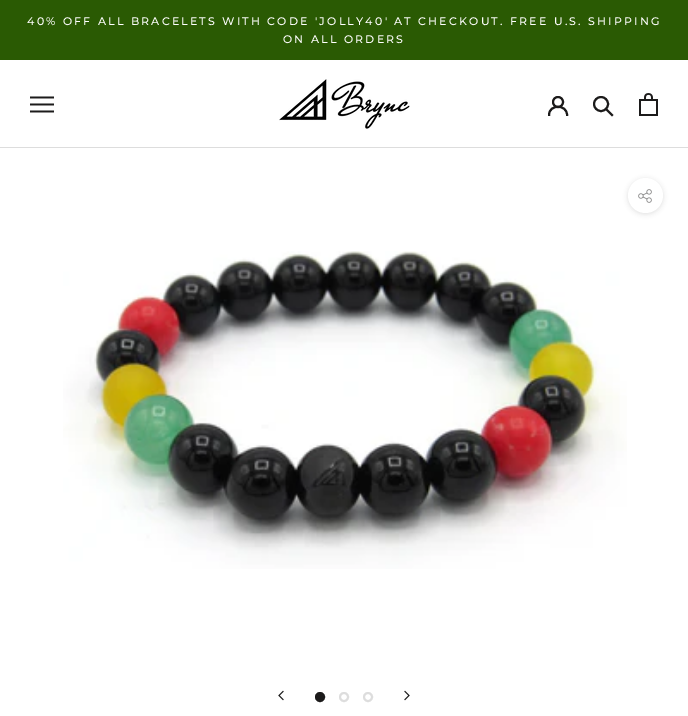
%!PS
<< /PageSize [688 716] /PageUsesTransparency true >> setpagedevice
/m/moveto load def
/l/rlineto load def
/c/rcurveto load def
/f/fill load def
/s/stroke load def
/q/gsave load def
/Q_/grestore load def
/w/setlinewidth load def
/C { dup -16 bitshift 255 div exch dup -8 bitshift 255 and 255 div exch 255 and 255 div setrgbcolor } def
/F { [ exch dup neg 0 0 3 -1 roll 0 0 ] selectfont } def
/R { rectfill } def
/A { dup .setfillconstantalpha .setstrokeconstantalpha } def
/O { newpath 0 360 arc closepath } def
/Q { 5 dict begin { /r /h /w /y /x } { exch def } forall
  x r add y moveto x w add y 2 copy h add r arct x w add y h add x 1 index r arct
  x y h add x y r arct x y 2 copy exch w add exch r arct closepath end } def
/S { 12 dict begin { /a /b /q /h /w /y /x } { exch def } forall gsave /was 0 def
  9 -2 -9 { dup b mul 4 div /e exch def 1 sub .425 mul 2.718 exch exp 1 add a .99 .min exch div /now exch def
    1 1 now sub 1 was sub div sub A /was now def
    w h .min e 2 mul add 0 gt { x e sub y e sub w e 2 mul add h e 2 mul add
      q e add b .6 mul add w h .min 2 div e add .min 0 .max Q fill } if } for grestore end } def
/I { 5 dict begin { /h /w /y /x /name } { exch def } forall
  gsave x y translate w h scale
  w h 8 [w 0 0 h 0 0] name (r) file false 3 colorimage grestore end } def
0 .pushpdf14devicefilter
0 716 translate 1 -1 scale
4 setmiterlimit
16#FFFFFF C
0 0 688 716 R
16#2A5A03 C
0 0 688 60 R
/Montserrat-Medium 11 F
16#FFFFFF C
27 25 m 2.2 0 (40% OFF ALL BRACELETS WITH CODE 'JOLLY40' AT CHECKOUT. FREE U.S. SHIPPING) ashow
283 43 m 2.2 0 (ON ALL ORDERS) ashow
16#DDDDDD C
0 147 688 1 R
(1.rgb) 30 96 24 17 I
(2.rgb) 279 79 131 50 I
16#1C1B1B C
2 w
2 setlinecap
549 115 m 0 -11 18 -11 18 0 c s
0 setlinecap
558 102 5 O s
2 setlinecap
612 115 m -5.5 -5.5 l s
0 setlinecap
601 104 7 O s
(3.rgb) 639 93 19 23 I
16#363636 C
628 179 35 35 17.5 2.5 .15 S
16#FFFFFF C
645.5 195.5 17.5 O f
(4.rgb) 638 189 14 14 I
(5.rgb) 63 251 564 318 I
16#1C1B1B C
1 w
2 setlinecap
283 699.5 m -4 -4 l 4 -4 l s
320 697 4 O q f Q_
2 w
0 setlinecap
s
16#DDDDDD C
344 697 4 O s
368 697 4 O s
16#1C1B1B C
1 w
2 setlinecap
405 699.5 m 4 -4 l -4 -4 l s
.poppdf14devicefilter showpage
